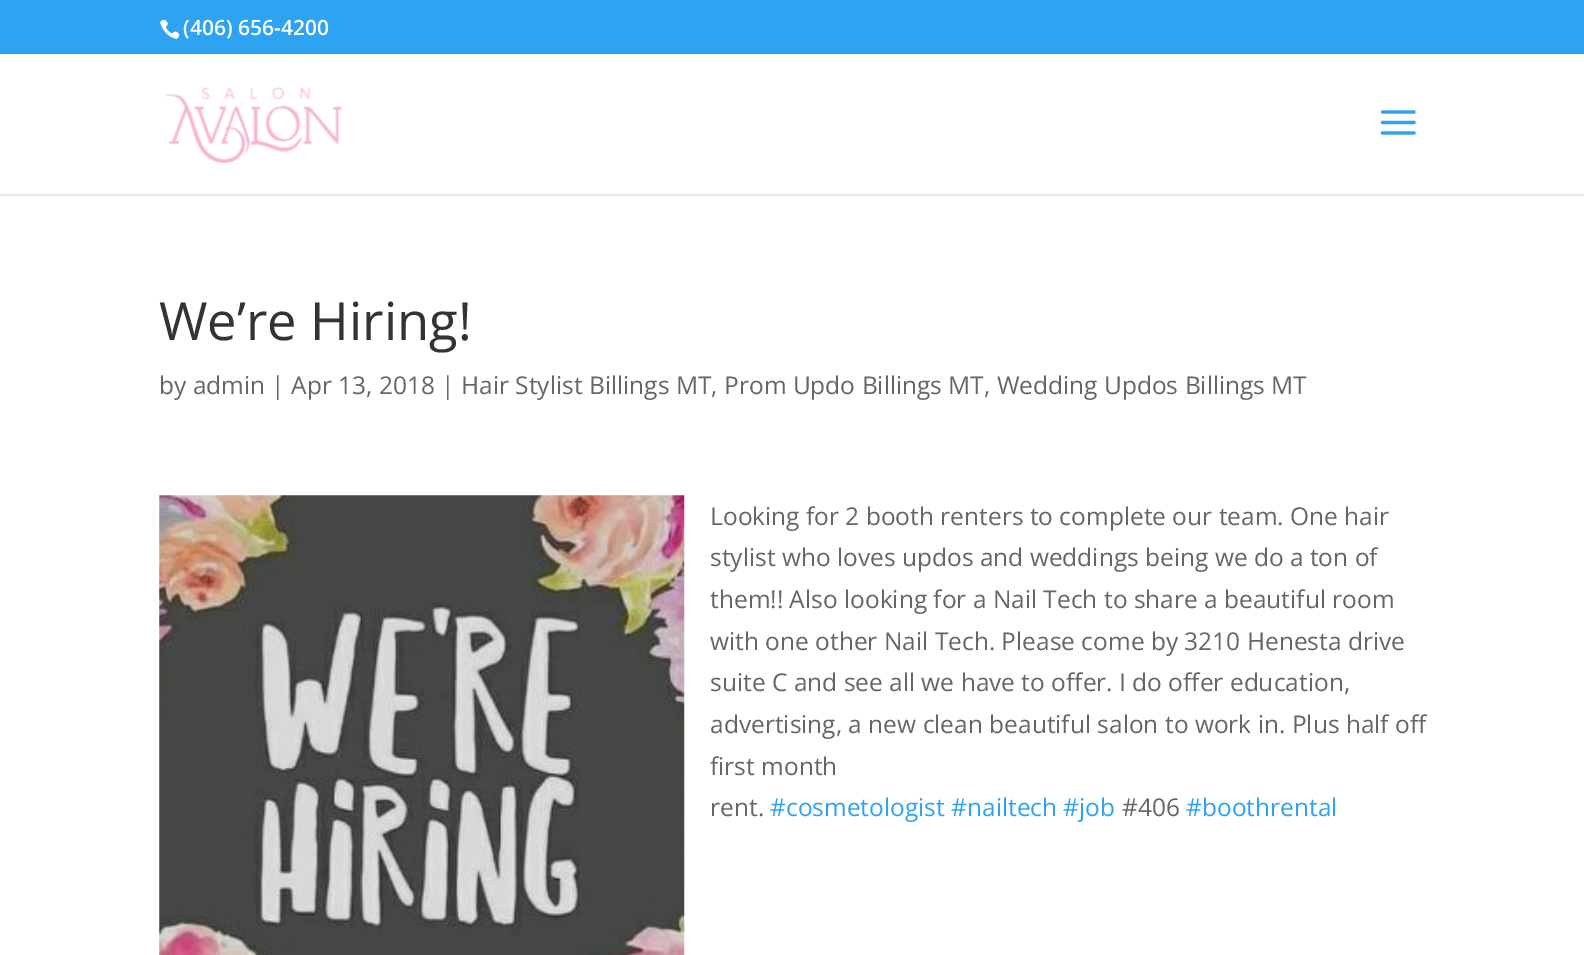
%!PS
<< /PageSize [1584 955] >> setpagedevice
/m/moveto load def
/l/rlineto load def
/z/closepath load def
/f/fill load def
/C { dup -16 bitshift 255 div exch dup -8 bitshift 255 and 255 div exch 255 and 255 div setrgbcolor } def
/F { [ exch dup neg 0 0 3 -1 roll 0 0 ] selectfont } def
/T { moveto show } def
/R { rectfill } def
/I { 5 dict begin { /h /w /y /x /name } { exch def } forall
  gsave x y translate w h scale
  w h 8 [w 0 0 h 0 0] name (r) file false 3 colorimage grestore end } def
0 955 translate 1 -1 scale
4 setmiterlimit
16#FFFFFF C
0 0 1584 955 R
16#2EA3F2 C
0 0 1584 54 R
(1.rgb) 160 19 20 20 I
/OpenSans-SemiBold 21 F
16#FFFFFF C
(\(406\) 656-4200) 183 35 T
16#E6E6E6 C
0 194 m 0 2 l 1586 0 l 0 -140 l 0 138 l z f
(2.rgb) 164 87 178 76 I
(3.rgb) 1380 110 36 25 I
/OpenSans-Regular 52.5 F
16#333333 C
(We’re Hiring!) 159 340 T
/OpenSans-Regular 24.5 F
16#666666 C
(by admin | Apr 13, 2018 | Hair Stylist Billings MT, Prom Updo Billings MT, Wedding Updos Billings MT) 159 394 T
(4.rgb) 159 495 526 460 I
(Looking for 2 booth renters to complete our team. One hair) 710 525 T
(stylist who loves updos and weddings being we do a ton of) 710 566 T
(them!! Also looking for a Nail Tech to share a beautiful room) 710 608 T
(with one other Nail Tech. Please come by 3210 Henesta drive) 710 650 T
(suite C and see all we have to offer. I do offer education,) 710 691 T
(advertising, a new clean beautiful salon to work in. Plus half off) 710 733 T
(first month) 710 775 T
(rent.) 710 816 T
16#2EA3F2 C
(#cosmetologist #nailtech #job) 770 816 T
16#666666 C
(#406) 1122 816 T
16#2EA3F2 C
(#boothrental) 1186 816 T
showpage
